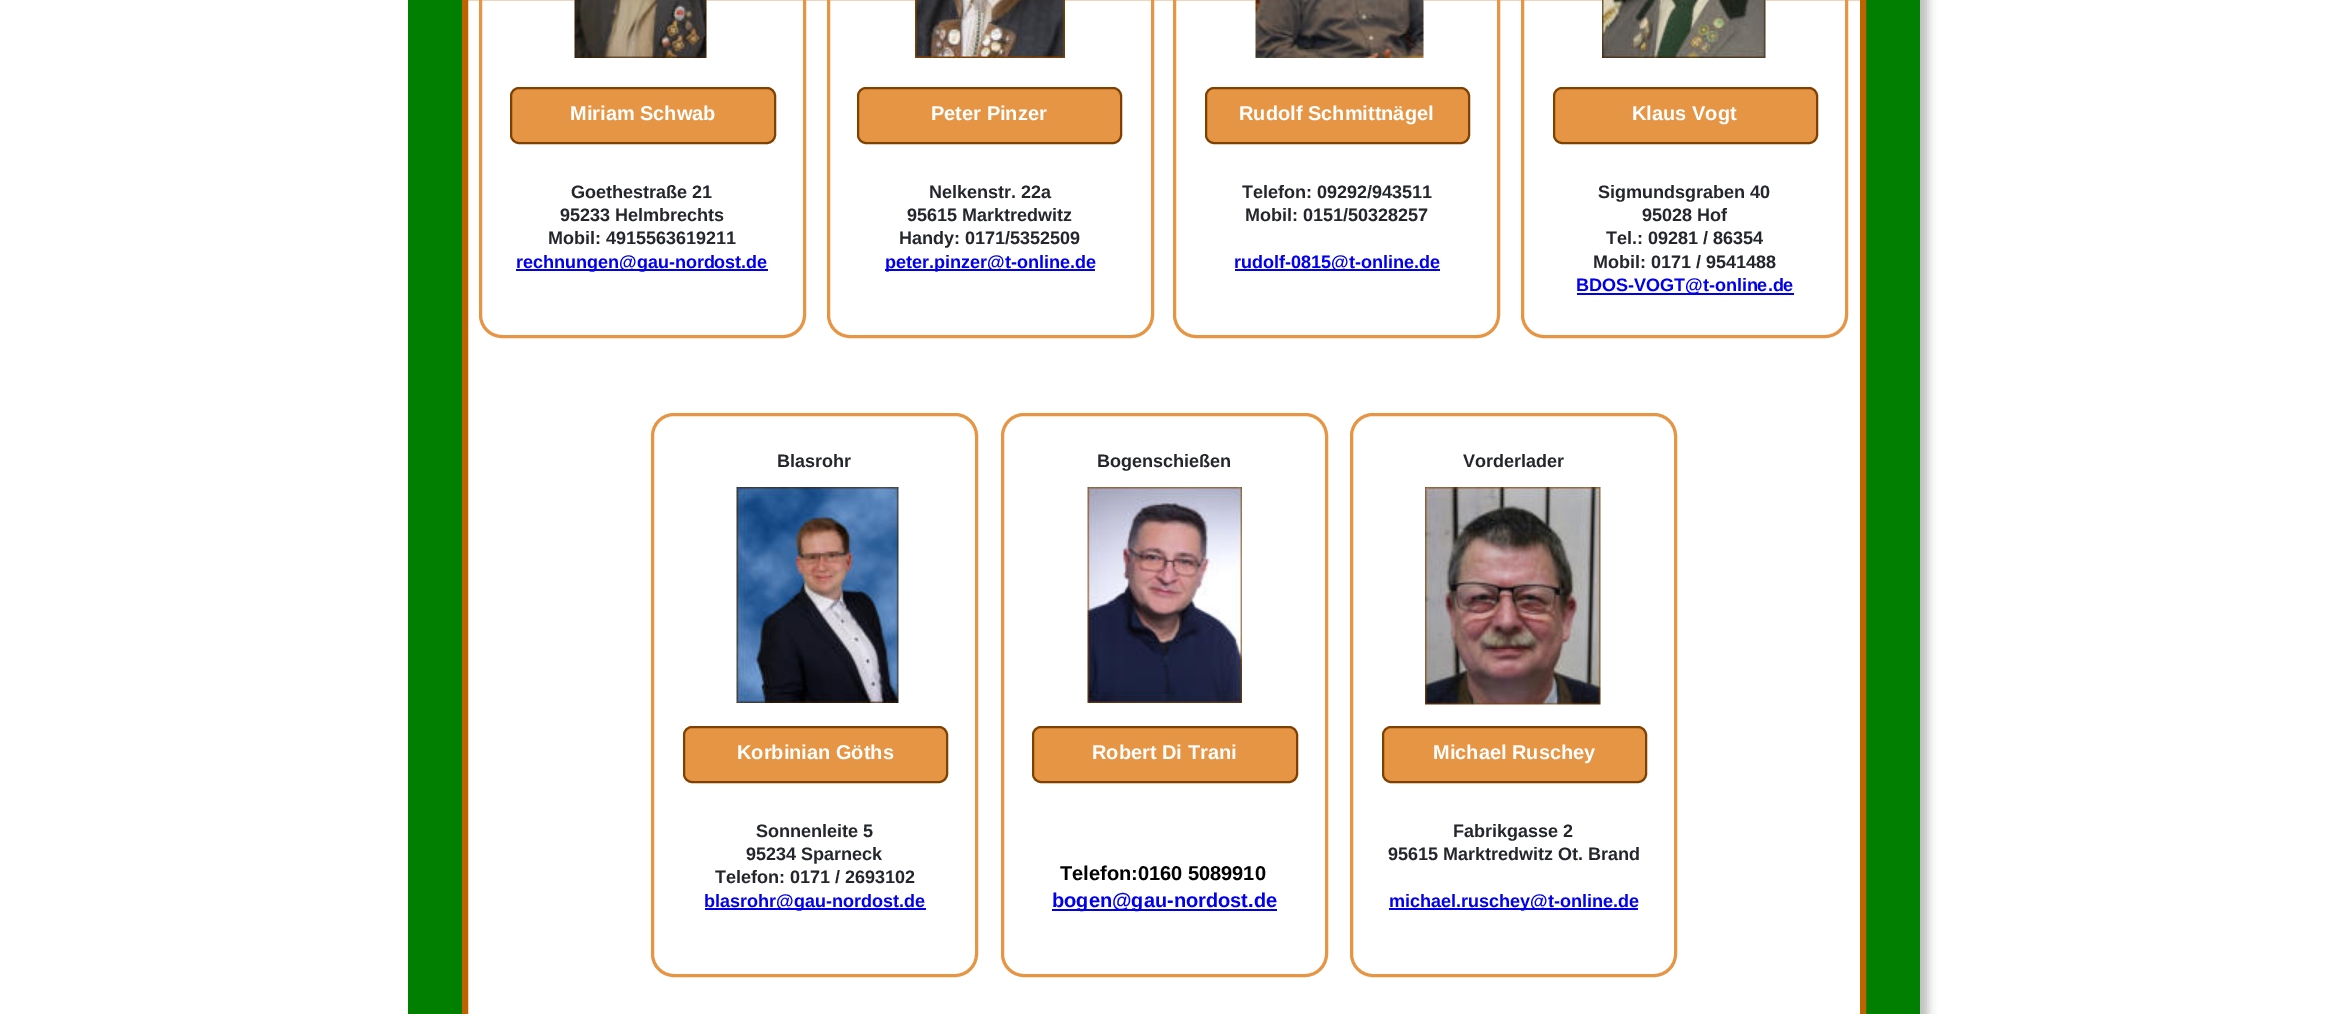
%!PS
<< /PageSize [2327 1014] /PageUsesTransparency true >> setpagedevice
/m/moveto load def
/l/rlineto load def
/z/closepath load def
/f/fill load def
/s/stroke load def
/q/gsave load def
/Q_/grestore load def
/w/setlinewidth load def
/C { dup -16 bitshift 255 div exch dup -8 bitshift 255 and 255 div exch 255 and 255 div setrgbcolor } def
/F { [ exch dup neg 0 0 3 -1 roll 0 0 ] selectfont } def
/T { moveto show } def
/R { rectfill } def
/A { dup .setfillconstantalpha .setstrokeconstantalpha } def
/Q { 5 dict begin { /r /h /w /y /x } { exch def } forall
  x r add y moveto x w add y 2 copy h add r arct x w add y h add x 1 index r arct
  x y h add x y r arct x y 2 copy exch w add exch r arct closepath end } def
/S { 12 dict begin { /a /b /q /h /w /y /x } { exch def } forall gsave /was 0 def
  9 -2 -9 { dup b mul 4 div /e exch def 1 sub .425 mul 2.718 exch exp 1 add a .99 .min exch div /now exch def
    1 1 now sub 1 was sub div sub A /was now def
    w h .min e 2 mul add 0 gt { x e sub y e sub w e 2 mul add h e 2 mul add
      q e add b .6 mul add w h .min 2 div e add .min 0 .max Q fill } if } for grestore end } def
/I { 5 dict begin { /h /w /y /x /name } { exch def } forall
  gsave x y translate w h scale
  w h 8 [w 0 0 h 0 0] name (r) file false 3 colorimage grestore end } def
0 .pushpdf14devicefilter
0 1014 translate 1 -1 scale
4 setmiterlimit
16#FFFFFF C
0 0 2327 1014 R
16#000000 C
416 -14 1512 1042 0 4.5 .25 S
16#007F01 C
408 0 1512 1014 R
16#FFFFFF C
465 -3 m 1398 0 l 0 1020 l -1398 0 l z q f Q_
16#BF6200 C
6 w
s
16#E69545 C
3 w
480.5 -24.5 324 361 21.5 Q s
828.5 -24.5 324 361 21.5 Q s
1174.5 -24.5 324 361 21.5 Q s
1522.5 -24.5 324 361 21.5 Q s
(1.rgb) 574 0 133 58 I
(2.rgb) 915 0 150 58 I
(3.rgb) 1255 0 169 58 I
(4.rgb) 1602 0 164 58 I
511 88 264 55 8 Q q f Q_
16#7F4100 C
2 w
s
16#E69545 C
858 88 263 55 8 Q q f Q_
16#7F4100 C
s
16#E69545 C
1206 88 263 55 8 Q q f Q_
16#7F4100 C
s
16#E69545 C
1554 88 263 55 8 Q q f Q_
16#7F4100 C
s
/LiberationSans-Bold 20 F
16#FFFFFF C
(Miriam Schwab) 570 120 T
(Peter Pinzer) 931 120 T
(Rudolf Schmittnägel) 1239 120 T
(Klaus Vogt) 1632 120 T
/LiberationSans-Bold 18 F
16#24262B C
(Goethestraße 21) 571 198 T
(95233 Helmbrechts) 560 221 T
(Mobil: 4915563619211) 548 244 T
16#0000EE C
516 269 252 2 R
(rechnungen@gau-nordost.de) 516 268 T
16#24262B C
(Nelkenstr. 22a) 929 198 T
(95615 Marktredwitz) 907 221 T
(Handy: 0171/5352509) 899 244 T
16#0000EE C
885 269 210 2 R
(peter.pinzer@t-online.de) 885 268 T
16#24262B C
(Telefon: 09292/943511) 1242 198 T
(Mobil: 0151/50328257) 1245 221 T
16#0000EE C
1235 269 205 2 R
(rudolf-0815@t-online.de) 1234 268 T
16#24262B C
(Sigmundsgraben 40) 1598 198 T
(95028 Hof) 1642 221 T
(Tel.: 09281 / 86354) 1606 244 T
(Mobil: 0171 / 9541488) 1593 268 T
16#0000EE C
1577 293 217 2 R
(BDOS-VOGT@t-online.de) 1576 291 T
16#E69545 C
3 w
652.5 414.5 324 561 21.5 Q s
1002.5 414.5 324 561 21.5 Q s
1351.5 414.5 324 561 21.5 Q s
16#24262B C
(Blasrohr) 777 467 T
(Bogenschießen) 1097 467 T
(Vorderlader) 1463 467 T
(5.rgb) 736 487 163 216 I
(6.rgb) 1087 487 155 216 I
(7.rgb) 1425 487 176 218 I
16#E69545 C
684 727 263 55 8 Q q f Q_
16#7F4100 C
2 w
s
16#E69545 C
1033 727 264 55 8 Q q f Q_
16#7F4100 C
s
16#E69545 C
1383 727 263 55 8 Q q f Q_
16#7F4100 C
s
/LiberationSans-Bold 20 F
16#FFFFFF C
(Korbinian Göths) 737 759 T
(Robert Di Trani) 1092 759 T
(Michael Ruschey) 1433 759 T
/LiberationSans-Bold 18 F
16#24262B C
(Sonnenleite 5) 756 837 T
(95234 Sparneck) 746 860 T
(Telefon: 0171 / 2693102) 715 883 T
16#0000EE C
705 908 221 2 R
(blasrohr@gau-nordost.de) 704 907 T
/LiberationSans-Bold 20 F
16#000000 C
(Telefon:0160 5089910) 1060 880 T
/LiberationSans-Bold 18 F
16#24262B C
(Fabrikgasse 2) 1453 837 T
(95615 Marktredwitz Ot. Brand) 1388 860 T
16#0000EE C
1389 908 249 2 R
(michael.ruschey@t-online.de) 1389 907 T
1052 909 225 2 R
/LiberationSans-Bold 20 F
(bogen@gau-nordost.de) 1052 907 T
.poppdf14devicefilter showpage
